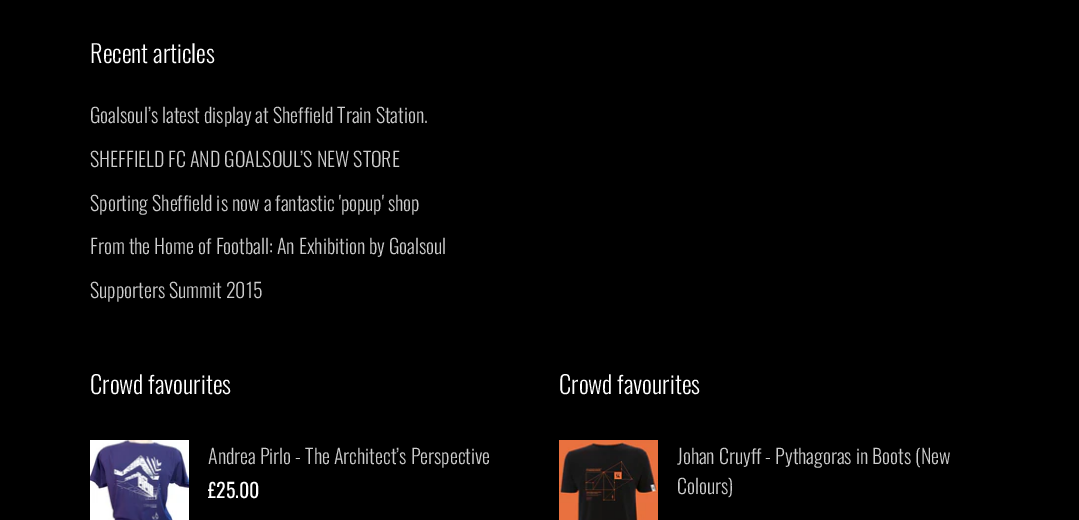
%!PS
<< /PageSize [1079 520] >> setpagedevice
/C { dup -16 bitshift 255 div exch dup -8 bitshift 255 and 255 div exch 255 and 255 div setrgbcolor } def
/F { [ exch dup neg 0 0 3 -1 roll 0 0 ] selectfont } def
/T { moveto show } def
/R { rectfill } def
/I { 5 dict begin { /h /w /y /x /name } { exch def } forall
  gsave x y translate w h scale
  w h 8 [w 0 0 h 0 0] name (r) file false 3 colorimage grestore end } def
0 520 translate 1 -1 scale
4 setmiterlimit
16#000000 C
0 0 1079 520 R
/Oswald-Light 24.5 F
16#FFFFFF C
(Recent articles) 90 63 T
/Oswald-Light 20 F
16#CCCCCC C
(Goalsoul’s latest display at Sheffield Train Station.) 90 123 T
(SHEFFIELD FC AND GOALSOUL’S NEW STORE) 90 167 T
(Sporting Sheffield is now a fantastic 'popup' shop) 90 211 T
(From the Home of Football: An Exhibition by Goalsoul) 90 254 T
(Supporters Summit 2015) 90 298 T
/Oswald-Light 24.5 F
16#FFFFFF C
(Crowd favourites) 90 394 T
(1.rgb) 90 440 99 80 I
/Oswald-Light 20 F
16#CCCCCC C
(Andrea Pirlo - The Architect’s Perspective) 208 464 T
/Oswald-Regular 20 F
16#FFFFFF C
(£25.00) 208 498 T
/Oswald-Light 24.5 F
(Crowd favourites) 559 394 T
(2.rgb) 559 440 99 80 I
/Oswald-Light 20 F
16#CCCCCC C
(Johan Cruyff - Pythagoras in Boots \(New) 677 464 T
(Colours\)) 677 494 T
showpage
